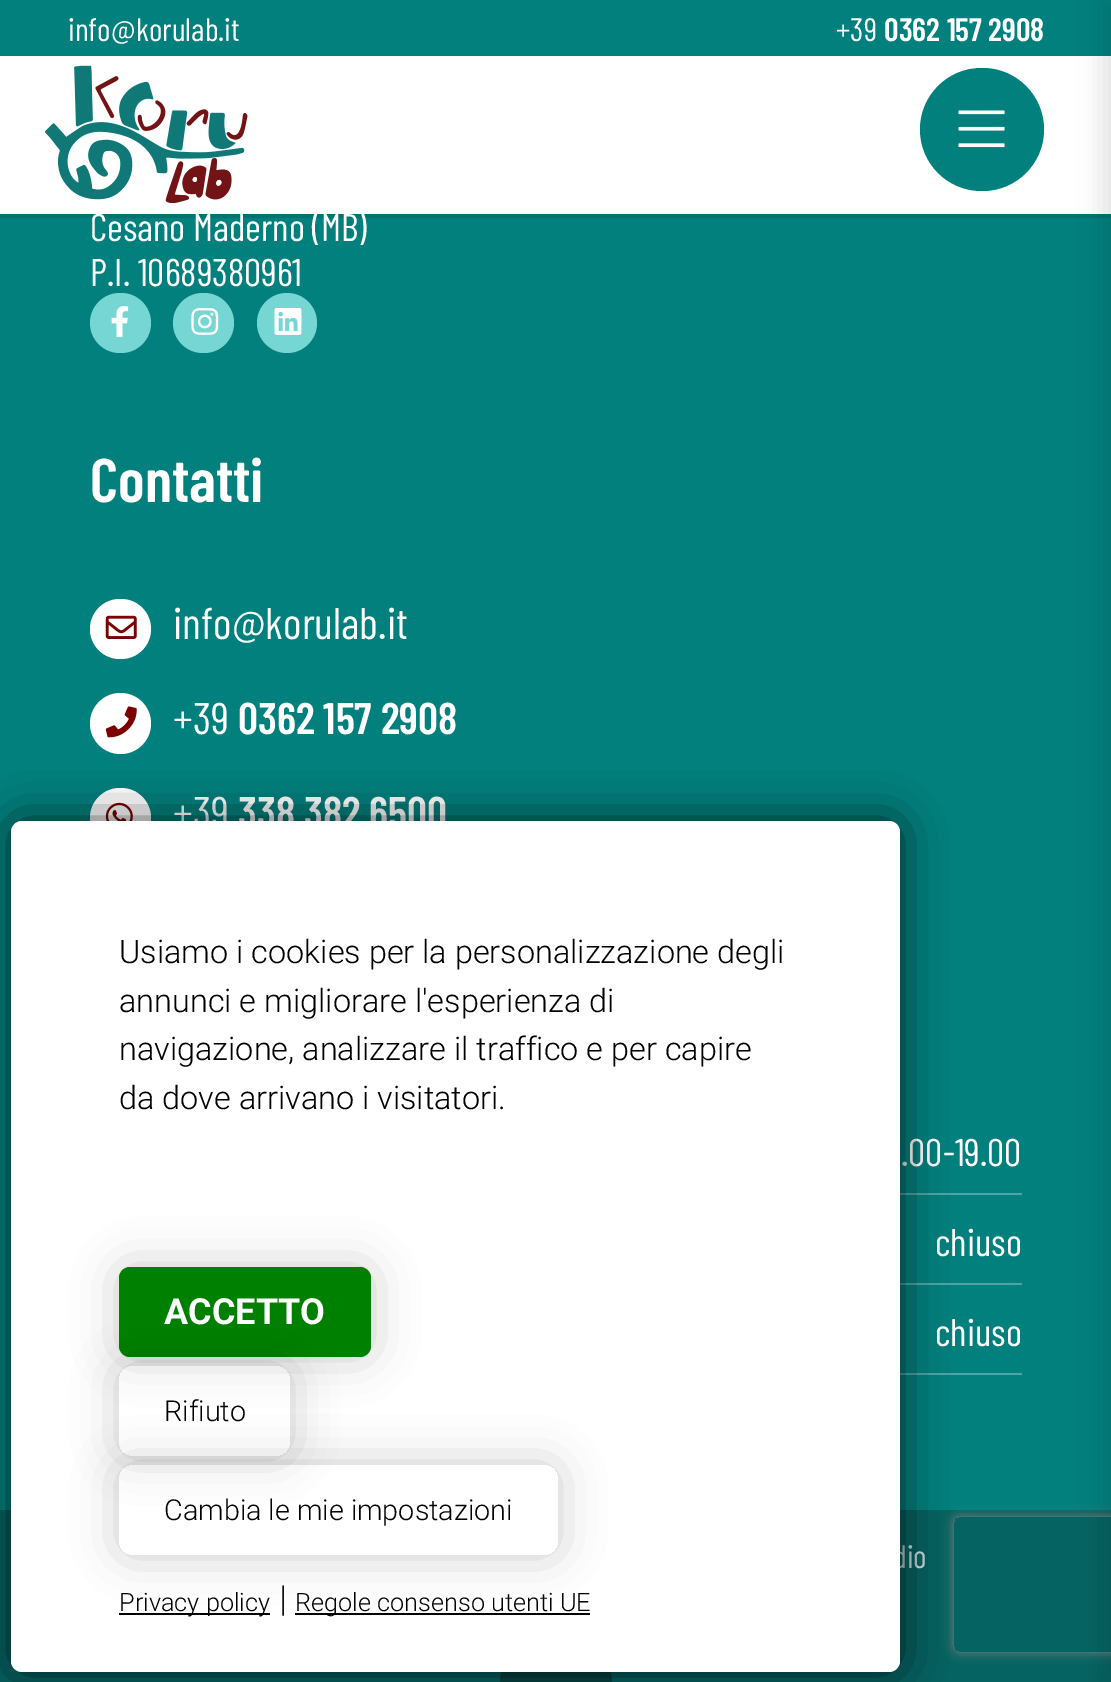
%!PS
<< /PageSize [1111 1682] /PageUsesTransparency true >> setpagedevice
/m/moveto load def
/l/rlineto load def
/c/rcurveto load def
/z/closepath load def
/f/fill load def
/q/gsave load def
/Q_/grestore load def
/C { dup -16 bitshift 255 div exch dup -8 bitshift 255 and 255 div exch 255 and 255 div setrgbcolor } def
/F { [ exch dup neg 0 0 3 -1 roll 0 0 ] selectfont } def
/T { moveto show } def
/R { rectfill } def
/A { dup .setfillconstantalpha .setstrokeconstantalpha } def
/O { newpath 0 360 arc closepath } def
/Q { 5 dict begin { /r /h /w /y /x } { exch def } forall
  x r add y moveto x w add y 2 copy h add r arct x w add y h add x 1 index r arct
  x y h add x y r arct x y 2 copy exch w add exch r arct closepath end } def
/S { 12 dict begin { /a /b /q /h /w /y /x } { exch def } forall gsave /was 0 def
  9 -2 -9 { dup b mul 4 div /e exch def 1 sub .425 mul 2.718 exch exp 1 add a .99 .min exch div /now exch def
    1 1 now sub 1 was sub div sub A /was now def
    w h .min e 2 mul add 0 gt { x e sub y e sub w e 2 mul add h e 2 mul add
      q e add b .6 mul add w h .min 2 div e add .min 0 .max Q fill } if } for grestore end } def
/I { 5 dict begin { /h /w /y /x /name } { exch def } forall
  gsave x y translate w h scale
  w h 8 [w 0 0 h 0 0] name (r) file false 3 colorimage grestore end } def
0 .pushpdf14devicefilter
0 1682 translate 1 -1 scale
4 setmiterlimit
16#056361 C
0 0 1111 1682 R
16#02807D C
0 0 1111 1510 R
0.1 A
16#000000 C
0 214 m 0 4 l 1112 0 l 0 -157 l 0 153 l z f
1 A
16#FFFFFF C
0 56 1111 158 R
(1.rgb) 45 65 203 138 I
16#02807D C
920 68 124 123 61.5 Q f
(2.rgb) 958 110 47 38 I
16#000000 C
1100 0 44 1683 0 11 .1 S
/BarlowCondensed-Regular 32.4 F
16#FFFFFF C
(info@korulab.it) 68 41 T
(+39) 836 41 T
/BarlowCondensed-SemiBold 32.4 F
(0362 157 2908) 884 41 T
/BarlowCondensed-Regular 38.5 F
(Cesano Maderno \(MB\)) 90 241 T
(P.I. 10689380961) 90 286 T
16#75D6D4 C
90 293 61 60 30 Q f
(3.rgb) 111 306 18 31 I
173 293 61 60 30 Q f
(4.rgb) 191 308 28 27 I
287 323 30 O f
(5.rgb) 274 308 28 27 I
/BarlowCondensed-SemiBold 61.5 F
16#FFFFFF C
(Contatti) 90 502 T
90 599 61 60 30 Q f
(6.rgb) 105 615 32 24 I
/BarlowCondensed-Regular 44.25 F
(info@korulab.it) 173 639 T
120.5 723.5 30.5 O f
(7.rgb) 105 706 32 32 I
(+39) 173 734 T
/BarlowCondensed-SemiBold 44.25 F
(0362 157 2908) 238 734 T
90 788 61 60 30 Q f
(8.rgb) 105 802 28 19 I
/BarlowCondensed-Regular 44.25 F
(+39) 173 828 T
/BarlowCondensed-SemiBold 44.25 F
(338 382 6500) 238 828 T
16#4EA6A4 C
900 1193 122 2 R
/BarlowCondensed-Regular 38.5 F
16#FFFFFF C
(.00-19.00) 901 1166 T
16#4EA6A4 C
900 1283 122 2 R
16#FFFFFF C
(chiuso) 935 1256 T
16#4EA6A4 C
900 1373 122 2 R
16#FFFFFF C
(chiuso) 935 1346 T
/BarlowCondensed-Regular 32.4 F
16#C9DCDC C
(dio) 893 1568 T
16#044544 C
500 1627 112 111 56 Q f
16#000000 C
11 821 889 851 11 22.5 .7 S
16#FFFFFF C
11 821 889 851 11 Q f
/Roboto-Light 32.4 F
16#000000 C
(Usiamo i cookies per la personalizzazione degli) 119 963 T
(annunci e migliorare l'esperienza di) 119 1012 T
(navigazione, analizzare il traffico e per capire) 119 1060 T
(da dove arrivano i visitatori.) 119 1109 T
119 1267 252 90 11 22.5 .2 S
16#008000 C
119 1267 252 90 11 Q f
/Roboto-Bold 36 F
16#FFFFFF C
(ACCETTO) 164 1324 T
q
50 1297 m 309 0 l 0 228 l -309 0 l z 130 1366 m 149 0 l 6 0 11 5 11 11 c 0 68 l 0 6 -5 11 -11 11 c -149 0 l -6 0 -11 -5 -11 -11 c 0 -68 l 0 -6 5 -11 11 -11 c z eoclip newpath
16#000000 C
119 1366 171 90 11 22.5 .2 S
Q_
/Roboto-Light 28.75 F
16#000000 C
(Rifiuto) 164 1421 T
q
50 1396 m 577 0 l 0 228 l -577 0 l z 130 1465 m 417 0 l 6 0 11 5 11 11 c 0 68 l 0 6 -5 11 -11 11 c -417 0 l -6 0 -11 -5 -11 -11 c 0 -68 l 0 -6 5 -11 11 -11 c z eoclip newpath
119 1465 439 90 11 22.5 .2 S
Q_
(Cambia le mie impostazioni) 164 1520 T
119 1613 151 2 R
/Roboto-Light 25.25 F
(Privacy policy) 119 1611 T
/Roboto-Light 36 F
16#111111 C
(|) 279 1611 T
16#000000 C
295 1613 295 2 R
/Roboto-Light 25.25 F
(Regole consenso utenti UE) 295 1611 T
q
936 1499 m 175 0 l 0 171 l -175 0 l z 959 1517 m 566 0 l 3 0 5 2 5 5 c 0 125 l 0 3 -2 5 -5 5 c -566 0 l -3 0 -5 -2 -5 -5 c 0 -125 l 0 -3 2 -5 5 -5 c z eoclip newpath
16#808080 C
954 1517 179 135 5 5.5 1 S
Q_
.poppdf14devicefilter showpage
